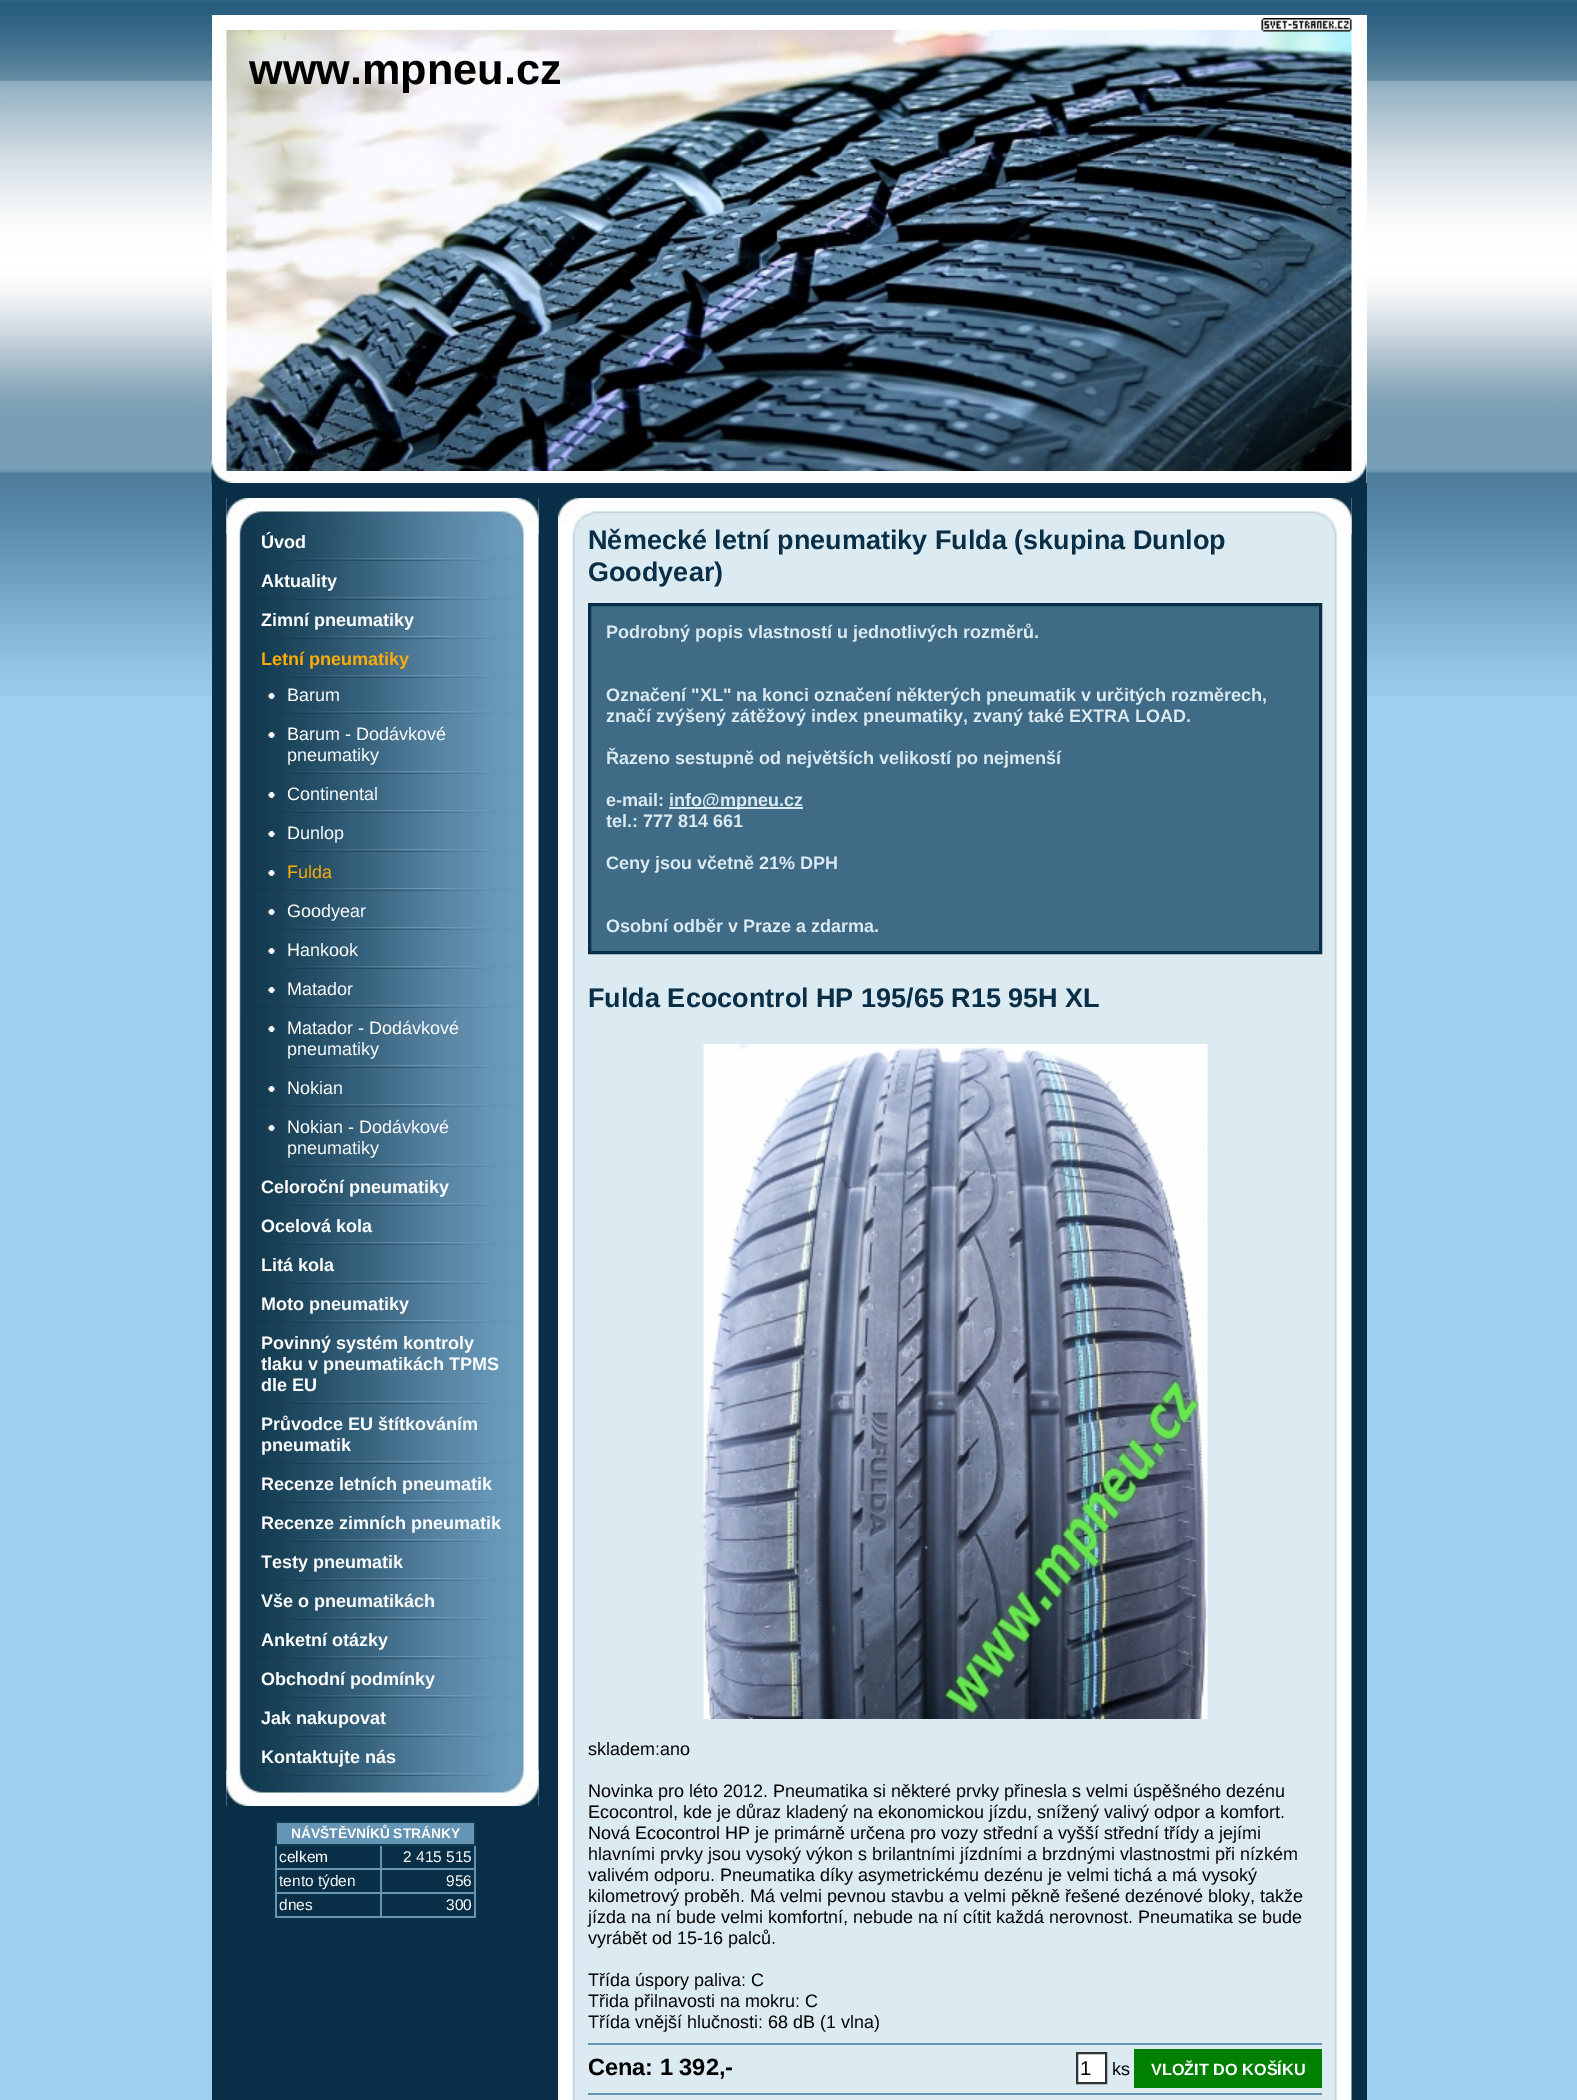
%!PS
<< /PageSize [1577 2100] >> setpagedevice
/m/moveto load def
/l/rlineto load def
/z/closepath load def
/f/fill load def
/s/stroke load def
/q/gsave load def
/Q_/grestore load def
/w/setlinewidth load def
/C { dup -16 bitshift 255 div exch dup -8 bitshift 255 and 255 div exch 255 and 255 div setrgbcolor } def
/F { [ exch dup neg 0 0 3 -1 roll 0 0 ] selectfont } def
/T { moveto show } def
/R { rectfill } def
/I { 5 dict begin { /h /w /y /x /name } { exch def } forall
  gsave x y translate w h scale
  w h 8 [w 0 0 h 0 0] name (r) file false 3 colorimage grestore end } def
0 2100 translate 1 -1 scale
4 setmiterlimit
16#9DD0EF C
0 0 1577 2100 R
(1.rgb) 0 0 1577 696 I
16#082F47 C
212 483 1155 1617 R
16#FFFFFF C
212 15 1155 468 R
(2.rgb) 211 460 1156 23 I
(4.rgb) 226 30 1126 441 I
(3.rgb) 1261 18 91 14 I
/LiberationSans-Bold 43.25 F
16#000000 C
(www.mpneu.cz) 249 84 T
(5.rgb) 226 498 313 1308 I
(6.rgb) 226 498 313 36 I
(7.rgb) 226 1770 313 36 I
(8.rgb) 254 558 261 3 I
/LiberationSans-Bold 18 F
16#FFFFFF C
(Úvod) 261 548 T
(8.rgb) 254 597 261 3 I
(Aktuality) 261 587 T
(8.rgb) 254 636 261 3 I
(Zimní pneumatiky) 261 626 T
(8.rgb) 254 675 261 3 I
16#FFAC04 C
(Letní pneumatiky) 261 665 T
(9.rgb) 268 693 7 6 I
(8.rgb) 254 711 261 3 I
/LiberationSans-Regular 18 F
16#FFFFFF C
(Barum) 287 701 T
(9.rgb) 268 732 7 6 I
(8.rgb) 254 771 261 3 I
(Barum - Dodávkové) 287 740 T
(pneumatiky) 287 761 T
(9.rgb) 268 792 7 6 I
(8.rgb) 254 810 261 3 I
(Continental) 287 800 T
(9.rgb) 268 831 7 6 I
(8.rgb) 254 849 261 3 I
(Dunlop) 287 839 T
(9.rgb) 268 870 7 6 I
(8.rgb) 254 888 261 3 I
16#FFAC04 C
(Fulda) 287 878 T
(9.rgb) 268 909 7 6 I
(8.rgb) 254 927 261 3 I
16#FFFFFF C
(Goodyear) 287 917 T
(9.rgb) 268 948 7 6 I
(8.rgb) 254 966 261 3 I
(Hankook) 287 956 T
(9.rgb) 268 987 7 6 I
(8.rgb) 254 1005 261 3 I
(Matador) 287 995 T
(9.rgb) 268 1026 7 6 I
(8.rgb) 254 1065 261 3 I
(Matador - Dodávkové) 287 1034 T
(pneumatiky) 287 1055 T
(9.rgb) 268 1086 7 6 I
(8.rgb) 254 1104 261 3 I
(Nokian) 287 1094 T
(9.rgb) 268 1125 7 6 I
(8.rgb) 254 1164 261 3 I
(Nokian - Dodávkové) 287 1133 T
(pneumatiky) 287 1154 T
(8.rgb) 254 1203 261 3 I
/LiberationSans-Bold 18 F
(Celoroční pneumatiky) 261 1193 T
(8.rgb) 254 1242 261 3 I
(Ocelová kola) 261 1232 T
(8.rgb) 254 1281 261 3 I
(Litá kola) 261 1271 T
(8.rgb) 254 1320 261 3 I
(Moto pneumatiky) 261 1310 T
(8.rgb) 254 1401 261 3 I
(Povinný systém kontroly) 261 1349 T
(tlaku v pneumatikách TPMS) 261 1370 T
(dle EU) 261 1391 T
(8.rgb) 254 1461 261 3 I
(Průvodce EU štítkováním) 261 1430 T
(pneumatik) 261 1451 T
(8.rgb) 254 1500 261 3 I
(Recenze letních pneumatik) 261 1490 T
(8.rgb) 254 1539 261 3 I
(Recenze zimních pneumatik) 261 1529 T
(8.rgb) 254 1578 261 3 I
(Testy pneumatik) 261 1568 T
(8.rgb) 254 1617 261 3 I
(Vše o pneumatikách) 261 1607 T
(8.rgb) 254 1656 261 3 I
(Anketní otázky) 261 1646 T
(8.rgb) 254 1695 261 3 I
(Obchodní podmínky) 261 1685 T
(8.rgb) 254 1734 261 3 I
(Jak nakupovat) 261 1724 T
(10.rgb) 249 1773 245 3 I
(Kontaktujte nás) 261 1763 T
16#6495B5 C
277 1823 197 21 R
16#103A50 C
275 1821 201 2 R
16#6495B5 C
380 1868 96 2 R
380 1892 96 2 R
474 1892 2 25 R
474 1844 2 49 R
16#103A50 C
474 1821 2 24 R
16#6495B5 C
380 1916 96 2 R
380 1892 2 25 R
275 1892 106 2 R
380 1868 2 25 R
275 1868 106 2 R
380 1844 2 25 R
275 1916 106 2 R
275 1892 2 25 R
275 1844 2 49 R
16#103A50 C
275 1844 201 2 R
275 1821 2 24 R
/LiberationSans-Bold 13.75 F
16#FFFFFF C
(NÁVŠTĚVNÍKŮ STRÁNKY) 291 1838 T
/LiberationSans-Regular 15.5 F
(celkem) 279 1862 T
(2 415 515) 403 1862 T
(tento týden) 279 1886 T
(956) 446 1886 T
(dnes) 279 1910 T
(300) 446 1910 T
(11.rgb) 558 498 794 1602 I
(12.rgb) 558 498 794 36 I
/LiberationSans-Bold 27 F
16#082F47 C
(Německé letní pneumatiky Fulda \(skupina Dunlop) 588 549 T
(Goodyear\)) 588 581 T
16#3F6B86 C
589.5 604.5 m 731 0 l 0 348 l -731 0 l z q f Q_
16#082F47 C
3 w
s
/LiberationSans-Bold 18 F
16#DCEBF2 C
(Podrobný popis vlastností u jednotlivých rozměrů.) 606 638 T
(Označení "XL" na konci označení některých pneumatik v určitých rozměrech,) 606 701 T
(značí zvýšený zátěžový index pneumatiky, zvaný také EXTRA LOAD.) 606 722 T
(Řazeno sestupně od největších velikostí po nejmenší) 606 764 T
(e-mail:) 606 806 T
669 807 134 2 R
(info@mpneu.cz) 669 806 T
(tel.: 777 814 661) 606 827 T
(Ceny jsou včetně 21% DPH) 606 869 T
(Osobní odběr v Praze a zdarma.) 606 932 T
/LiberationSans-Bold 27 F
16#082F47 C
(Fulda Ecocontrol HP 195/65 R15 95H XL) 588 1007 T
(13.rgb) 703 1044 505 675 I
/LiberationSans-Regular 18 F
16#000000 C
(skladem:ano) 588 1755 T
(Novinka pro léto 2012. Pneumatika si některé prvky přinesla s velmi úspěšného dezénu) 588 1797 T
(Ecocontrol, kde je důraz kladený na ekonomickou jízdu, snížený valivý odpor a komfort.) 588 1818 T
(Nová Ecocontrol HP je primárně určena pro vozy střední a vyšší střední třídy a jejími) 588 1839 T
(hlavními prvky jsou vysoký výkon s brilantními jízdními a brzdnými vlastnostmi při nízkém) 588 1860 T
(valivém odporu. Pneumatika díky asymetrickému dezénu je velmi tichá a má vysoký) 588 1881 T
(kilometrový proběh. Má velmi pevnou stavbu a velmi pěkně řešené dezénové bloky, takže) 588 1902 T
(jízda na ní bude velmi komfortní, nebude na ní cítit každá nerovnost. Pneumatika se bude) 588 1923 T
(vyrábět od 15-16 palců.) 588 1944 T
(Třída úspory paliva: C) 588 1986 T
(Třida přilnavosti na mokru: C) 588 2007 T
(Třída vnější hlučnosti: 68 dB \(1 vlna\)) 588 2028 T
16#6495B5 C
588 2043 734 2 R
588 2093 734 2 R
/LiberationSans-Bold 23.5 F
16#000000 C
(Cena: 1 392,-) 588 2075 T
16#FFFFFF C
1077 2053 m 29 0 l 0 30 l -29 0 l z q f Q_
16#333333 C
2 w
s
/LiberationSans-Regular 20 F
16#000000 C
(1) 1080 2075 T
/LiberationSans-Regular 18 F
(ks) 1112 2075 T
16#008000 C
1134 2049 188 39 R
/LiberationSans-Bold 16.25 F
16#FFFFFF C
(VLOŽIT DO KOŠÍKU) 1151 2075 T
showpage
